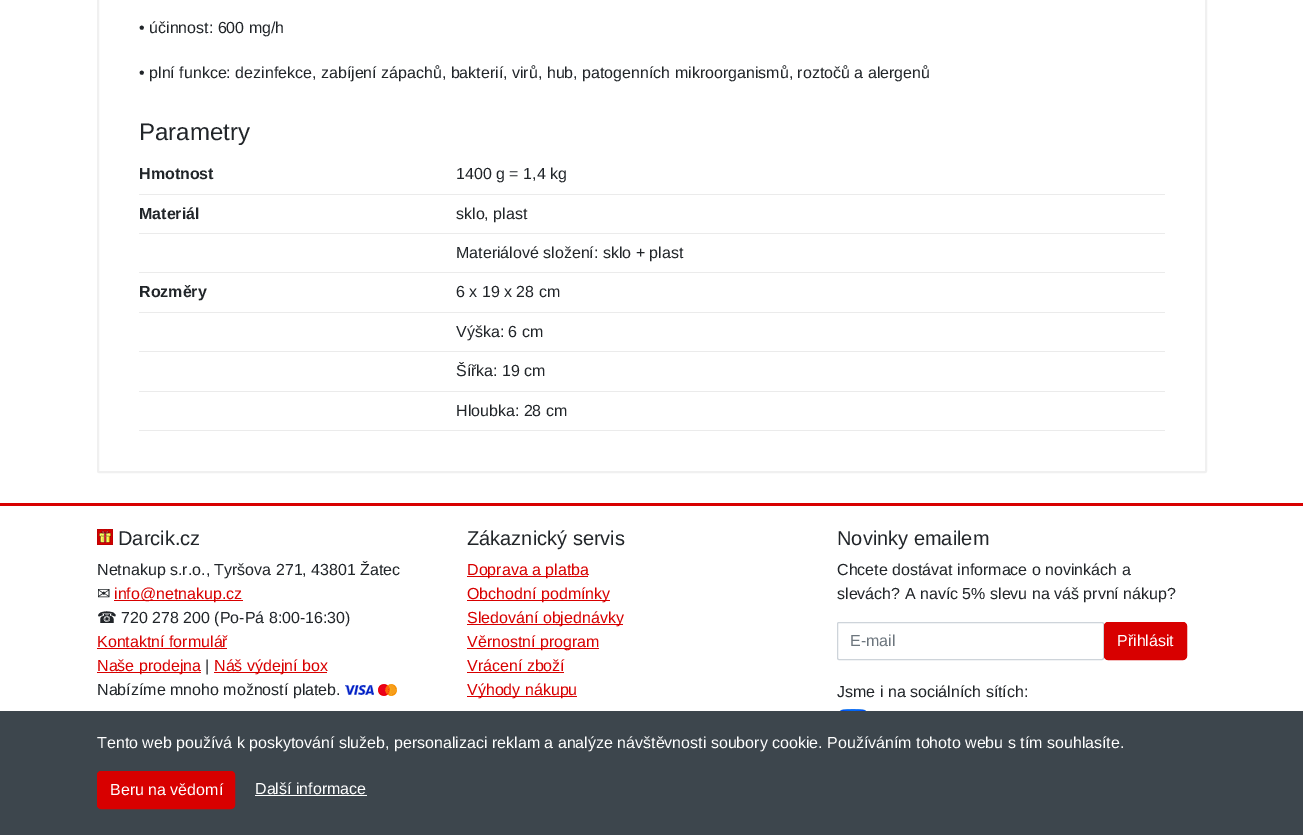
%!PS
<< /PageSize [1303 835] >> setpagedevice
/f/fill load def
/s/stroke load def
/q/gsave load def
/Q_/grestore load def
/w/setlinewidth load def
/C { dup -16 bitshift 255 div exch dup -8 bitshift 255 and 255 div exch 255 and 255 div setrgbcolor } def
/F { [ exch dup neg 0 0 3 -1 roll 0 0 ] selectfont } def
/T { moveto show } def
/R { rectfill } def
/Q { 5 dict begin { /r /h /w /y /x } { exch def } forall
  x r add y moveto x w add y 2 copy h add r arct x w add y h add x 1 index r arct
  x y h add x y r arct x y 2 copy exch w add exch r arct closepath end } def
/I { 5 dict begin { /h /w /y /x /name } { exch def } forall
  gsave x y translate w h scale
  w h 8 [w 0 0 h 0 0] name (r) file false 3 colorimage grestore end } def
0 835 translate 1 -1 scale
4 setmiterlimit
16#FFFFFF C
0 0 1303 835 R
16#F0F0F0 C
2 w
98 -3 1108 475 1 Q s
/LiberationSans-Regular 16 F
16#212529 C
(• účinnost: 600 mg/h) 139 33 T
(• plní funkce: dezinfekce, zabíjení zápachů, bakterií, virů, hub, patogenních mikroorganismů, roztočů a alergenů) 139 78 T
/LiberationSans-Regular 24 F
(Parametry) 139 140 T
16#EBEBEB C
139 194 1026 1 R
/LiberationSans-Bold 16 F
16#212529 C
(Hmotnost) 139 179 T
/LiberationSans-Regular 16 F
(1400 g = 1,4 kg) 456 179 T
16#EBEBEB C
139 233 1026 1 R
/LiberationSans-Bold 16 F
16#212529 C
(Materiál) 139 219 T
/LiberationSans-Regular 16 F
(sklo, plast) 456 219 T
16#EBEBEB C
139 272 1026 1 R
16#212529 C
(Materiálové složení: sklo + plast) 456 258 T
16#EBEBEB C
139 312 1026 1 R
/LiberationSans-Bold 16 F
16#212529 C
(Rozměry) 139 297 T
/LiberationSans-Regular 16 F
(6 x 19 x 28 cm) 456 297 T
16#EBEBEB C
139 351 1026 1 R
16#212529 C
(Výška: 6 cm) 456 337 T
16#EBEBEB C
139 391 1026 1 R
16#212529 C
(Šířka: 19 cm) 456 376 T
16#EBEBEB C
139 430 1026 1 R
16#212529 C
(Hloubka: 28 cm) 456 416 T
16#D80000 C
0 503 1303 3 R
(1.rgb) 97 529 16 16 I
/LiberationSans-Regular 20 F
16#212529 C
(Darcik.cz) 118 545 T
/LiberationSans-Regular 16 F
(Netnakup s.r.o., Tyršova 271, 43801 Žatec) 97 575 T
/DejaVuSans-Regular 16 F
(✉) 97 599 T
16#D80000 C
114 600 129 1 R
/LiberationSans-Regular 16 F
(info@netnakup.cz) 114 599 T
/DejaVuSans-Regular 16 F
16#212529 C
(☎) 97 623 T
/LiberationSans-Regular 16 F
(720 278 200 \(Po-Pá 8:00-16:30\)) 121 623 T
16#D80000 C
(Kontaktní formulář) 97 647 T
97 648 130 1 R
97 672 104 1 R
(Naše prodejna) 97 671 T
16#212529 C
(|) 205 671 T
16#D80000 C
214 672 113 1 R
(Náš výdejní box) 214 671 T
16#212529 C
(Nabízíme mnoho možností plateb.) 97 695 T
(2.rgb) 345 684 52 12 I
/LiberationSans-Regular 20 F
(Zákaznický servis) 467 545 T
16#D80000 C
467 576 121 1 R
/LiberationSans-Regular 16 F
(Doprava a platba) 467 575 T
467 600 143 1 R
(Obchodní podmínky) 467 599 T
467 624 156 1 R
(Sledování objednávky) 467 623 T
467 648 132 1 R
(Věrnostní program) 467 647 T
(Vrácení zboží) 467 671 T
467 672 97 1 R
467 696 110 1 R
(Výhody nákupu) 467 695 T
/LiberationSans-Regular 20 F
16#212529 C
(Novinky emailem) 837 545 T
/LiberationSans-Regular 16 F
(Chcete dostávat informace o novinkách a) 837 575 T
(slevách? A navíc 5% slevu na váš první nákup?) 837 599 T
16#CED4DA C
1 w
837.5 622.5 266 37 1.5 Q s
16#6C757D C
(E-mail) 850 646 T
16#D80000 C
1104.5 622.5 82 37 3.5 Q q f Q_
s
16#FFFFFF C
(Přihlásit) 1117 646 T
16#212529 C
(Jsme i na sociálních sítích:) 837 697 T
(3.rgb) 837 709 32 2 I
16#3D464D C
0 711 1303 124 R
16#FFFFFF C
(Tento web používá k poskytování služeb, personalizaci reklam a analýze návštěvnosti soubory cookie. Používáním tohoto webu s tím souhlasíte.) 97 748 T
16#D80000 C
97.5 771.5 137 37 3.5 Q q f Q_
s
16#FFFFFF C
(Beru na vědomí) 110 795 T
(Další informace) 255 794 T
255 795 112 1 R
showpage
